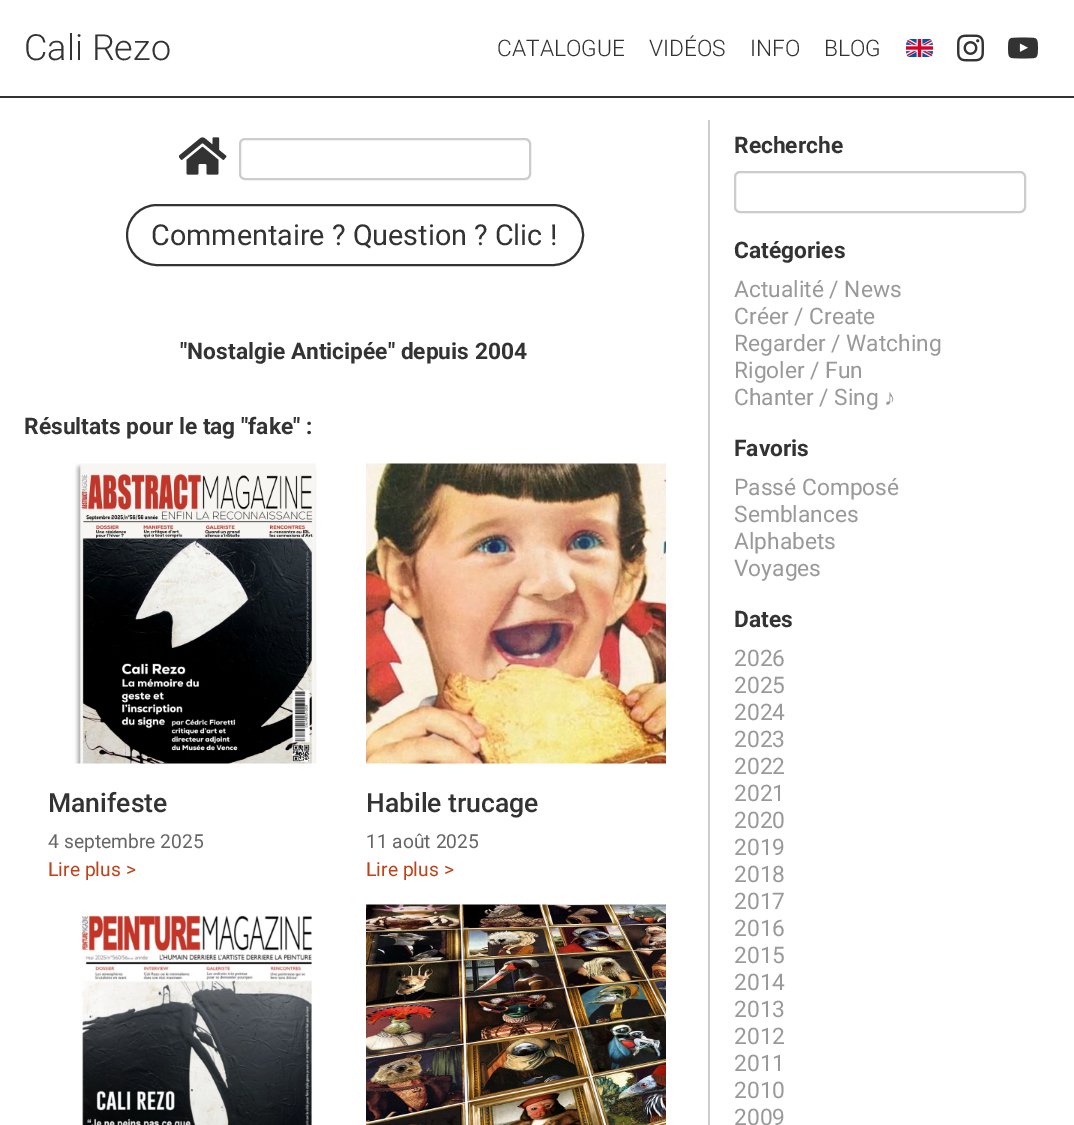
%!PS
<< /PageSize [1074 1125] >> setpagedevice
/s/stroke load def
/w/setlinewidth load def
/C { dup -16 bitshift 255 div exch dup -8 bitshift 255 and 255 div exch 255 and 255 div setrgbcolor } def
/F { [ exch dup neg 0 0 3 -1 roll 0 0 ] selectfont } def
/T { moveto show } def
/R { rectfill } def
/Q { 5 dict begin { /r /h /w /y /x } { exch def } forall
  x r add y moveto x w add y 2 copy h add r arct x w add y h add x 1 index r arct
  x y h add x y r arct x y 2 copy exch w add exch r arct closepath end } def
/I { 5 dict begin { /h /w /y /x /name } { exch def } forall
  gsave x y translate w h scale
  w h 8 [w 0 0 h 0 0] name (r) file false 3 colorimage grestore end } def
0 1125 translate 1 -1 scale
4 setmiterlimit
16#FFFFFF C
0 0 1074 1125 R
16#333333 C
0 96 1074 2 R
/Roboto-Light 36 F
(Cali Rezo) 24 60 T
/Roboto-Light 22.75 F
(CATALOGUE) 497 56 T
(VIDÉOS) 649 56 T
(INFO) 750 56 T
(BLOG) 824 56 T
(1.rgb) 906 39 27 18 I
(2.rgb) 957 34 27 28 I
(3.rgb) 1008 37 30 22 I
(4.rgb) 179 137 48 38 I
16#CCCCCC C
2 w
240 139 290 40 5 Q s
16#333333 C
127 205 456 60 30 Q s
/Roboto-Regular 28.75 F
(Commentaire ? Question ? Clic !) 151 245 T
/Roboto-Bold 22.75 F
("Nostalgie Anticipée" depuis 2004) 180 359 T
(Résultats pour le tag "fake" :) 24 434 T
(5.rgb) 74 463 243 301 I
/Roboto-Medium 26.5 F
(Manifeste) 48 812 T
/Roboto-Regular 19.25 F
16#666666 C
(4 septembre 2025) 48 848 T
16#C0421B C
(Lire plus) 48 876 T
(>) 126 876 T
(6.rgb) 366 463 300 301 I
/Roboto-Medium 26.5 F
16#333333 C
(Habile trucage) 366 812 T
/Roboto-Regular 19.25 F
16#666666 C
(11 août 2025) 366 848 T
16#C0421B C
(Lire plus) 366 876 T
(>) 444 876 T
(7.rgb) 80 915 233 210 I
(8.rgb) 366 904 300 221 I
16#CCCCCC C
708 120 2 1005 R
/Roboto-Bold 22.75 F
16#333333 C
(Recherche) 734 153 T
16#CCCCCC C
735 172 290 40 5 Q s
16#333333 C
(Catégories) 734 258 T
/Roboto-Regular 22.75 F
16#999999 C
(Actualité / News) 734 297 T
(Créer / Create) 734 324 T
(Regarder / Watching) 734 351 T
(Rigoler / Fun) 734 378 T
(Chanter / Sing) 734 405 T
/LiberationSans-Regular 22.75 F
(♪) 884 405 T
/Roboto-Bold 22.75 F
16#333333 C
(Favoris) 734 456 T
/Roboto-Regular 22.75 F
16#999999 C
(Passé Composé) 734 495 T
(Semblances) 734 522 T
(Alphabets) 734 549 T
(Voyages) 734 576 T
/Roboto-Bold 22.75 F
16#333333 C
(Dates) 734 627 T
/Roboto-Regular 22.75 F
16#999999 C
(2026) 734 666 T
(2025) 734 693 T
(2024) 734 720 T
(2023) 734 747 T
(2022) 734 774 T
(2021) 734 801 T
(2020) 734 828 T
(2019) 734 855 T
(2018) 734 882 T
(2017) 734 909 T
(2016) 734 936 T
(2015) 734 963 T
(2014) 734 990 T
(2013) 734 1017 T
(2012) 734 1044 T
(2011) 734 1071 T
(2010) 734 1098 T
(2009) 734 1125 T
showpage
